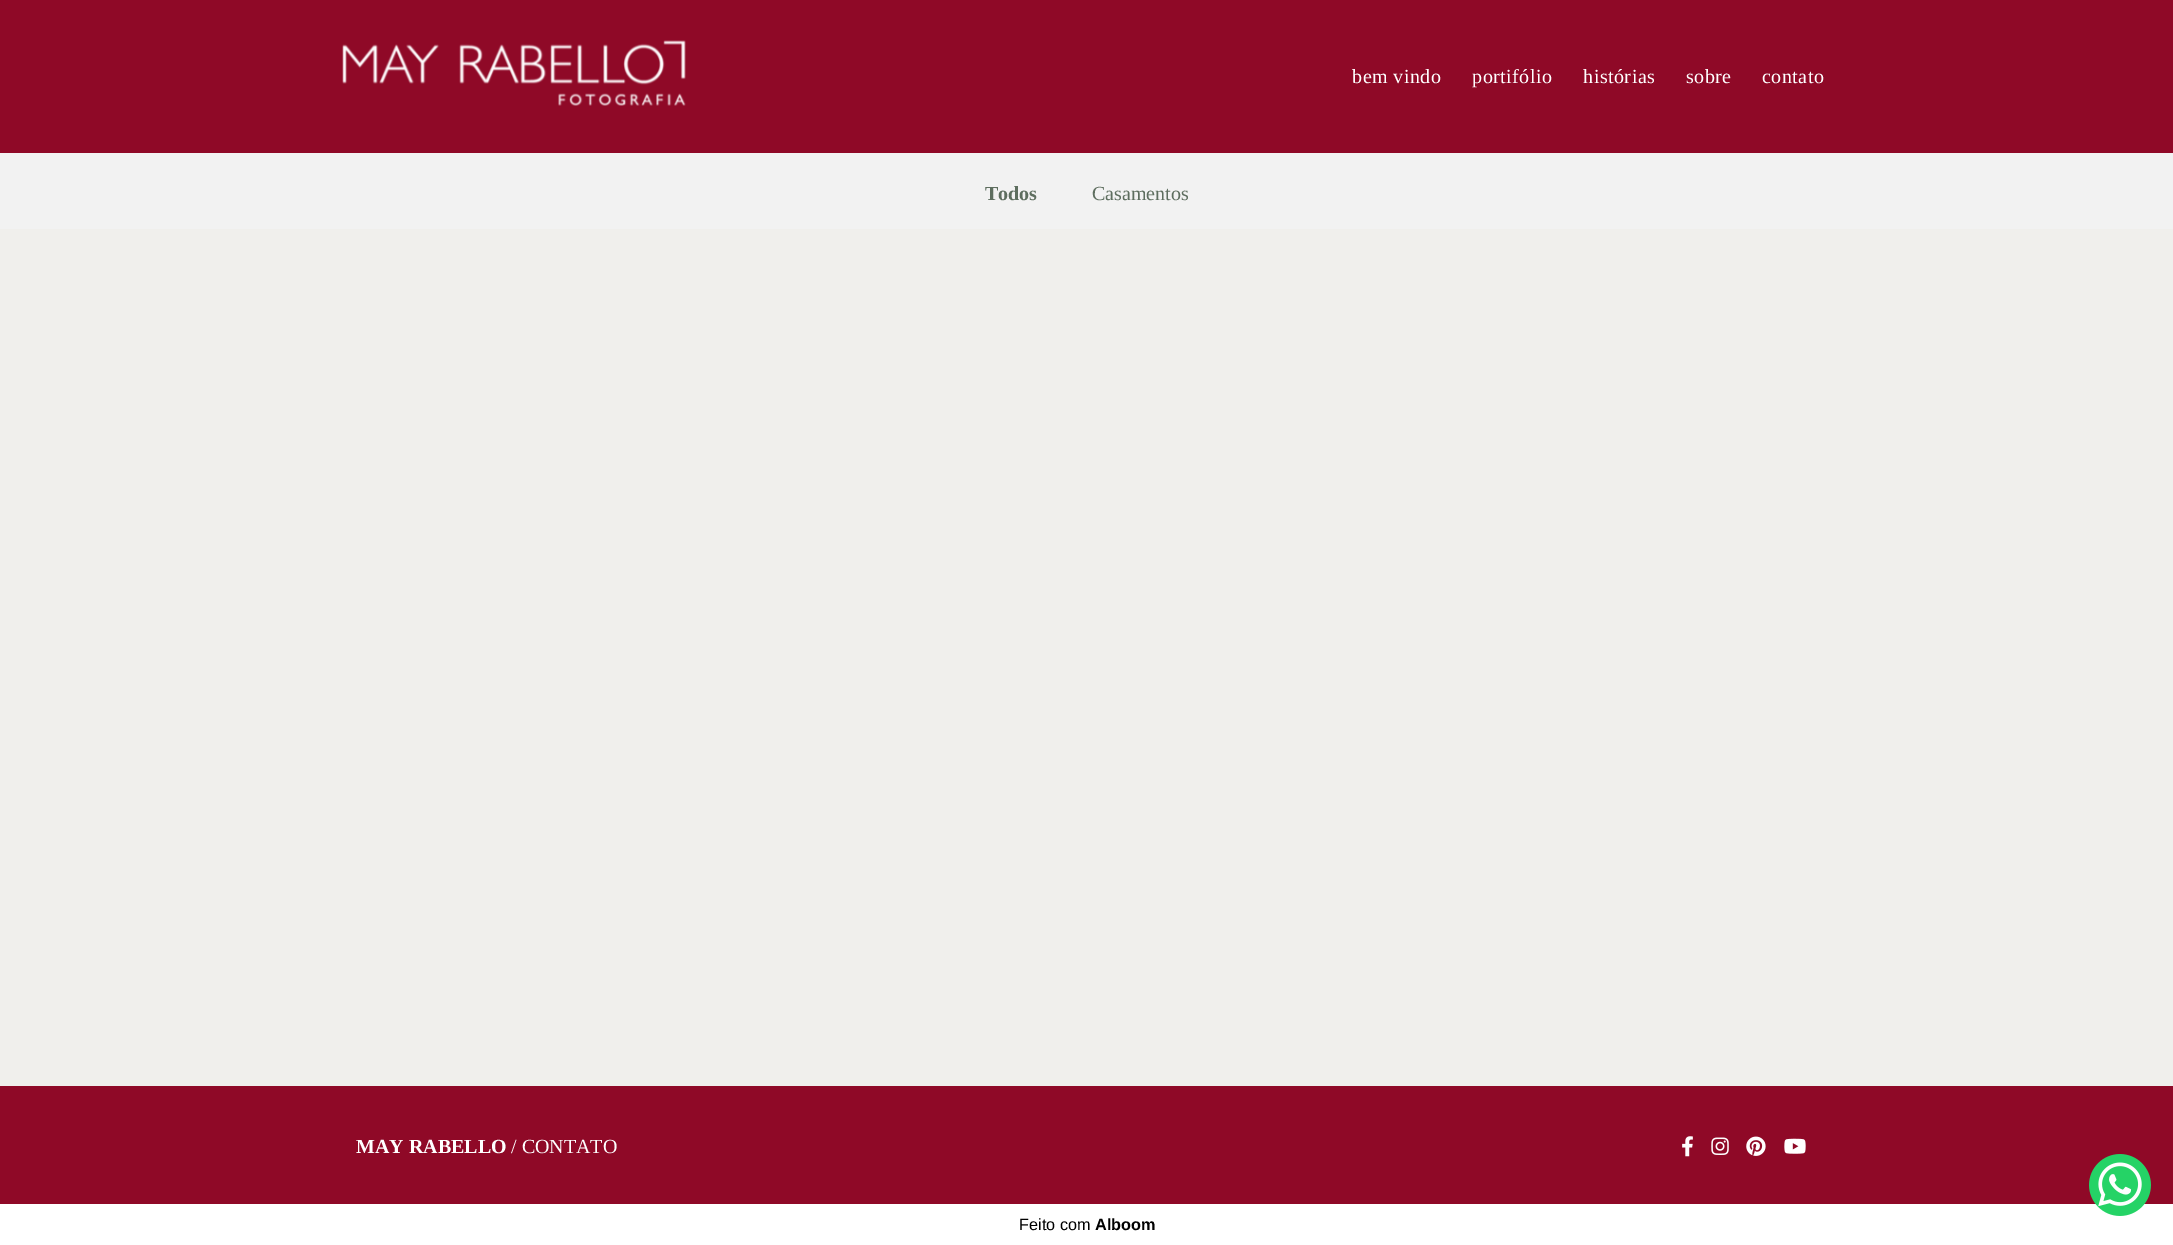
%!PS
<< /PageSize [2173 1245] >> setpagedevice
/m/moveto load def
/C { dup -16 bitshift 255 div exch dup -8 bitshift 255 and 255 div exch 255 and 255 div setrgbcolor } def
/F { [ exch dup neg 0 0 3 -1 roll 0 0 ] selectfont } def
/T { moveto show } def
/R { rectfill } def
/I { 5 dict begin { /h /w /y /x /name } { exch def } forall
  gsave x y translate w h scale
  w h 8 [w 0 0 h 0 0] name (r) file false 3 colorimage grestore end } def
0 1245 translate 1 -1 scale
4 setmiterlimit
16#F0EFEC C
0 0 2173 1245 R
16#8F0927 C
0 0 2173 153 R
(1.rgb) 342 40 344 66 I
/LiberationSerif-Regular 20 F
16#FFFFFF C
1352 83 m .5 0 (bem vindo) ashow
1472 83 m .5 0 (portifólio) ashow
1583 83 m .5 0 (histórias) ashow
1686 83 m .5 0 (sobre) ashow
1762 83 m .5 0 (contato) ashow
16#F2F2F2 C
0 153 2173 76 R
/LiberationSerif-Bold 20 F
16#5E6E5F C
(Todos) 985 200 T
/LiberationSerif-Regular 20 F
(Casamentos) 1092 200 T
16#8F0927 C
0 1086 2173 118 R
/LiberationSerif-Bold 20 F
16#FFFFFF C
(MAY RABELLO) 356 1153 T
/LiberationSerif-Regular 20 F
(/ CONTATO) 511 1153 T
(2.rgb) 1682 1136 11 21 I
(3.rgb) 1711 1137 18 18 I
(4.rgb) 1746 1136 20 20 I
(5.rgb) 1784 1138 22 16 I
0 1204 2173 41 R
(6.rgb) 2089 1154 62 62 I
/LiberationSans-Regular 16.25 F
16#000000 C
(Feito com) 1019 1230 T
/LiberationSans-Bold 16.25 F
(Alboom) 1095 1230 T
showpage
